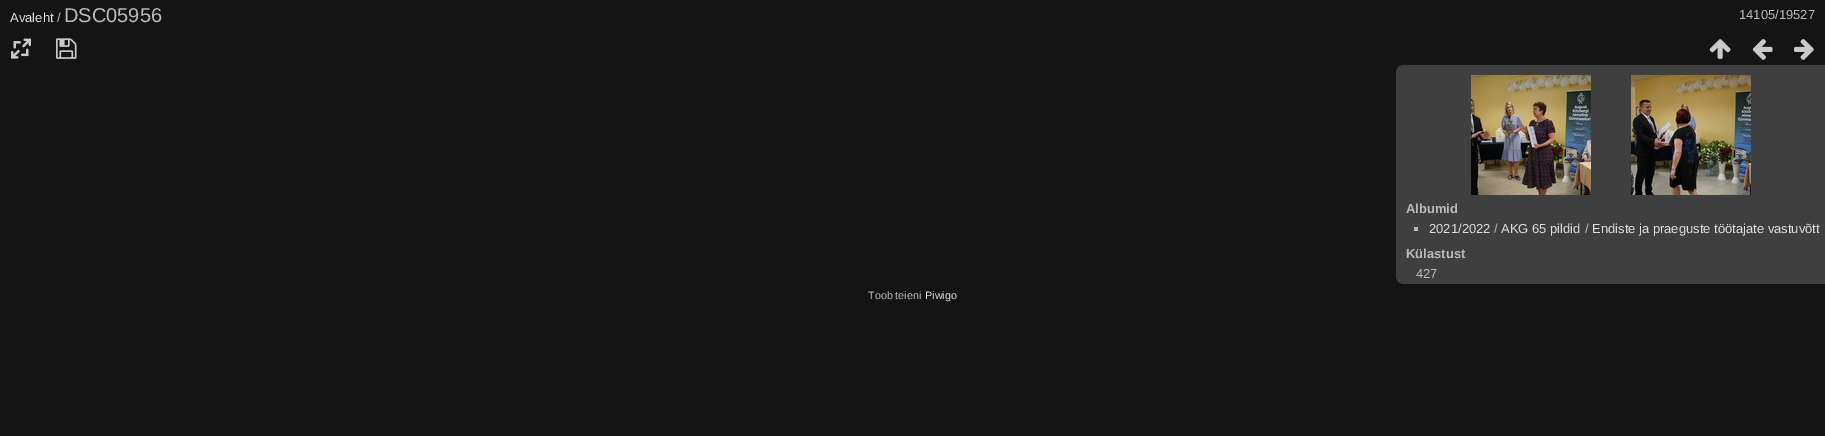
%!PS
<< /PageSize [1825 436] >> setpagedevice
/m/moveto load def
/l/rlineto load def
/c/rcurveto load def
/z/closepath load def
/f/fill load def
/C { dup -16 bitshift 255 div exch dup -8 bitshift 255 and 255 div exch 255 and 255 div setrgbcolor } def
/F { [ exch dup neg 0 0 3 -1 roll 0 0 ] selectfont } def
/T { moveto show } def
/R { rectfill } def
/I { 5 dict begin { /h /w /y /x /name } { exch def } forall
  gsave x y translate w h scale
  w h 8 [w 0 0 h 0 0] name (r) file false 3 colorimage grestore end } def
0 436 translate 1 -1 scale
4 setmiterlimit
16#141414 C
0 0 1825 436 R
/LiberationSans-Regular 13 F
16#DDDDDD C
(Avaleht) 10 22 T
16#BBBBBB C
(/) 57 22 T
/LiberationSans-Regular 20 F
(DSC05956) 64 22 T
/LiberationSans-Regular 13 F
(14105/19527) 1739 19 T
(1.rgb) 11 38 20 21 I
(2.rgb) 56 38 21 21 I
(3.rgb) 1709 39 22 20 I
(4.rgb) 1752 39 21 21 I
(5.rgb) 1794 39 20 21 I
16#3F3F3F C
1404 65 m 421 0 l 0 219 l -421 0 l -4.5 0 -8 -3.5 -8 -8 c 0 -203 l 0 -4.5 3.5 -8 8 -8 c z f
(6.rgb) 1471 75 120 120 I
(7.rgb) 1631 75 120 120 I
/LiberationSans-Bold 13 F
16#BBBBBB C
(Albumid) 1406 213 T
1414 227 4 4 R
/LiberationSans-Regular 13 F
16#DDDDDD C
(2021/2022) 1429 233 T
16#BBBBBB C
(/) 1494 233 T
16#DDDDDD C
(AKG 65 pildid) 1501 233 T
16#BBBBBB C
(/) 1585 233 T
16#DDDDDD C
(Endiste ja praeguste töötajate vastuvõtt) 1592 233 T
/LiberationSans-Bold 13 F
16#BBBBBB C
(Külastust) 1406 258 T
/LiberationSans-Regular 13 F
(427) 1416 278 T
/LiberationSans-Regular 10.75 F
(Toob teieni) 868 299 T
16#DDDDDD C
(Piwigo) 925 299 T
showpage
